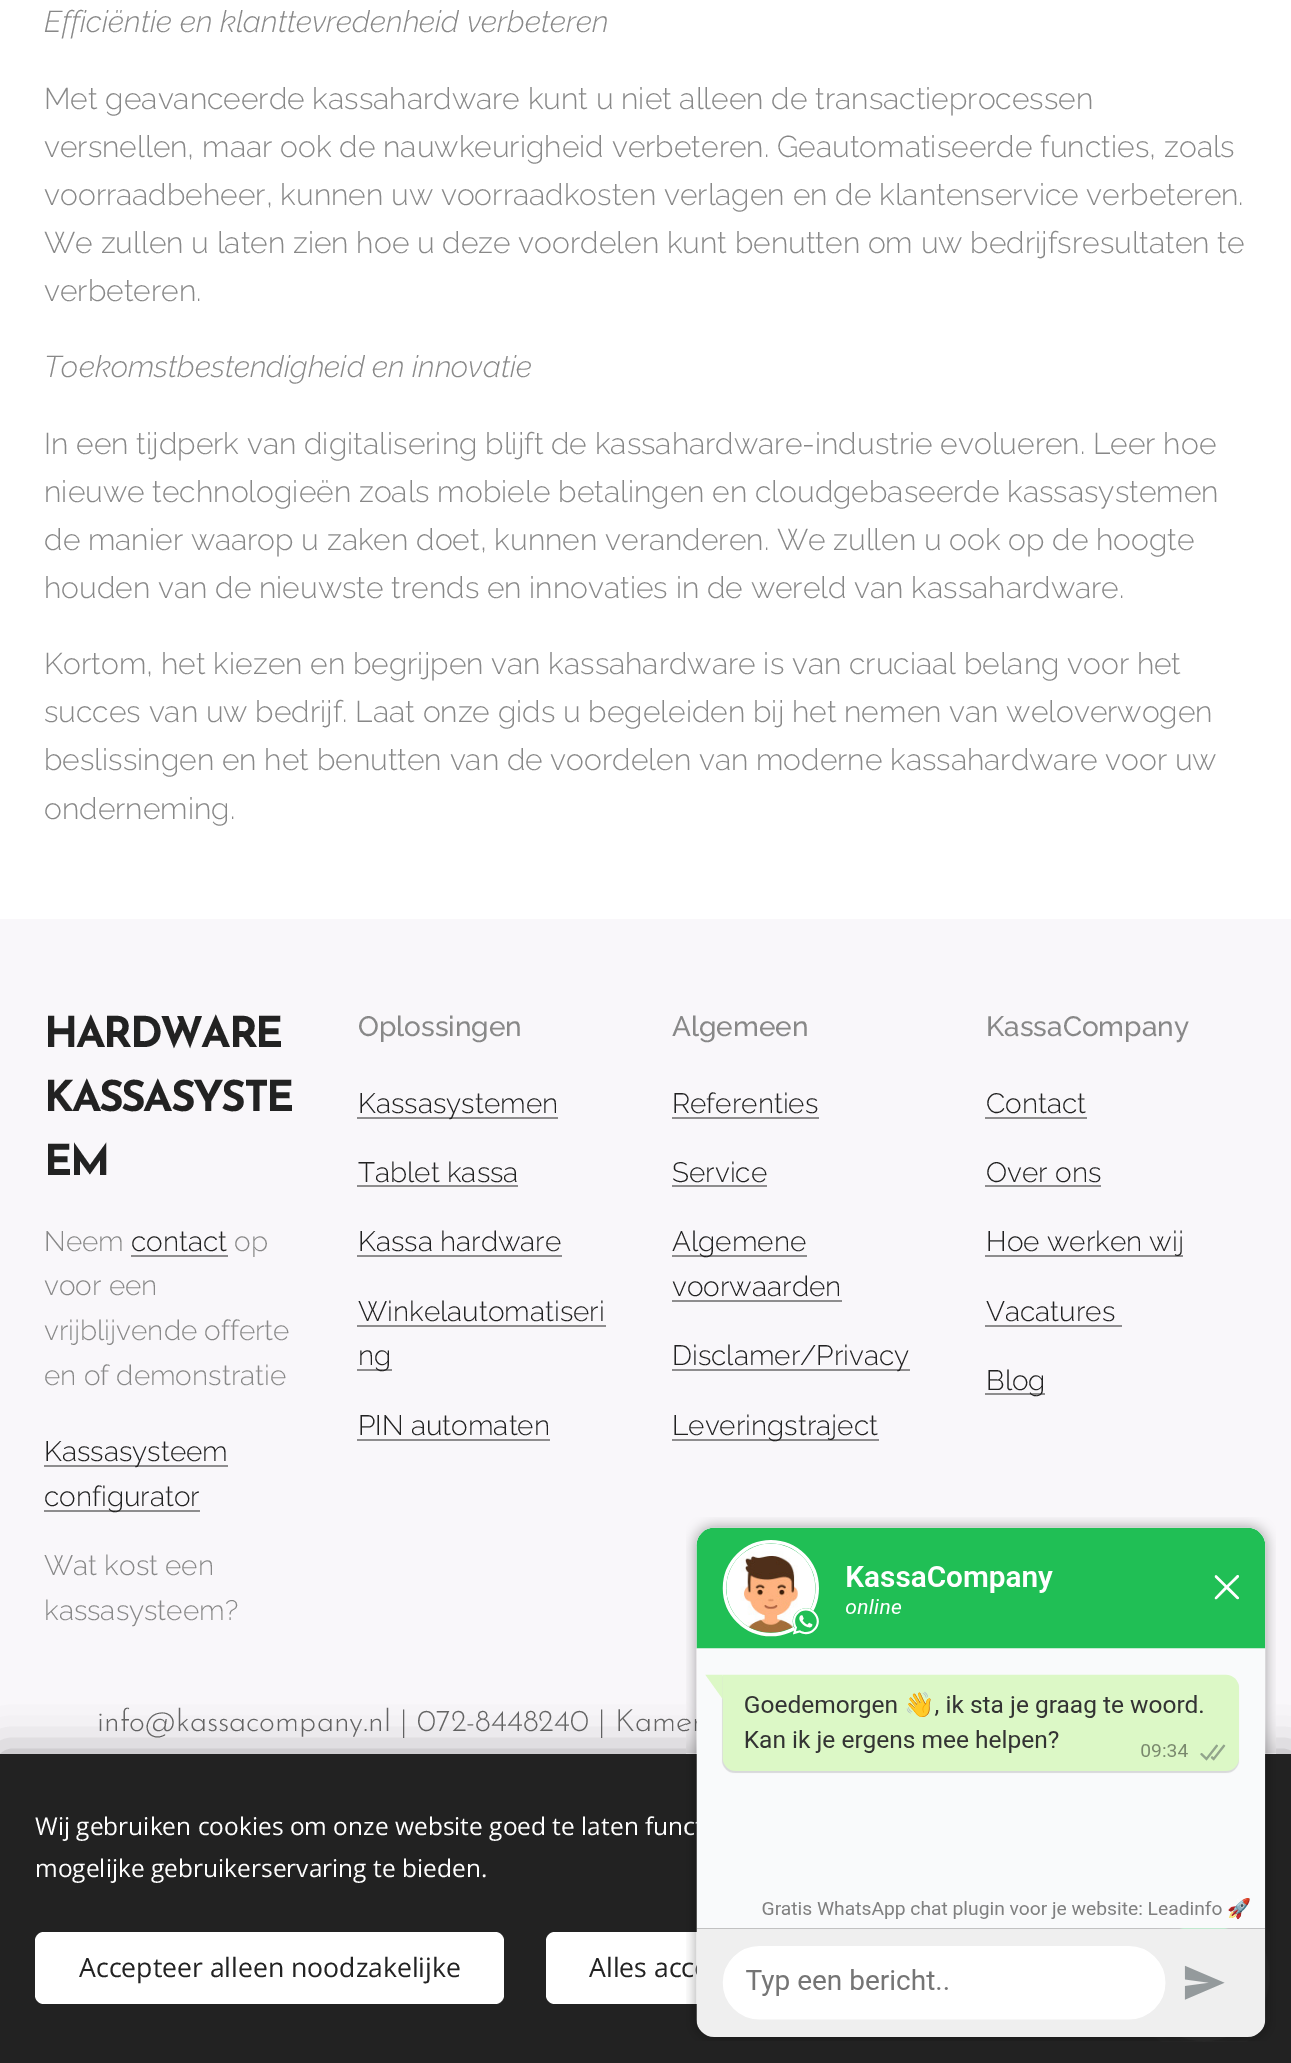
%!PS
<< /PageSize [1291 2063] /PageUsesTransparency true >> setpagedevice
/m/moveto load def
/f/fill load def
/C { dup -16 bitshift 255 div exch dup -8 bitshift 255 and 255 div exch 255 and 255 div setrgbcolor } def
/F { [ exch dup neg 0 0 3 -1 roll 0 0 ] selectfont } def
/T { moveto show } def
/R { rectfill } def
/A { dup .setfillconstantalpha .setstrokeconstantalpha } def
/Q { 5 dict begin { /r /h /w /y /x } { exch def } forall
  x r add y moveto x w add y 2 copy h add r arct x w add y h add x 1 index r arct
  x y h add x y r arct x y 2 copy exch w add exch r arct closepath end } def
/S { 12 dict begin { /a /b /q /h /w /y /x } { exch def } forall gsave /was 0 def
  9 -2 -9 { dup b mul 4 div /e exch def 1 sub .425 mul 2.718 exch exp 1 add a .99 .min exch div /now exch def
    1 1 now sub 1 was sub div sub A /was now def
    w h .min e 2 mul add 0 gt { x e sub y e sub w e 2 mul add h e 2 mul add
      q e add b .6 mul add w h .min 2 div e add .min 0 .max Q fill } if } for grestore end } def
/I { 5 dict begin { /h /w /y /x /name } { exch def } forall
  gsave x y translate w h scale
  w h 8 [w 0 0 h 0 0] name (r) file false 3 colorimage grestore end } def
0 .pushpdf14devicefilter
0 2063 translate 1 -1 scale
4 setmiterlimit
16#FFFFFF C
0 0 1291 2063 R
/Raleway-LightItalic 30.1 F
16#888888 C
(Efficiëntie en klanttevredenheid verbeteren) 44 32 T
/Raleway-Light 30.1 F
(Met geavanceerde kassahardware kunt u niet alleen de transactieprocessen) 44 109 T
(versnellen, maar ook de nauwkeurigheid verbeteren. Geautomatiseerde functies, zoals) 44 157 T
(voorraadbeheer, kunnen uw voorraadkosten verlagen en de klantenservice verbeteren.) 44 205 T
(We zullen u laten zien hoe u deze voordelen kunt benutten om uw bedrijfsresultaten te) 44 253 T
(verbeteren.) 44 301 T
/Raleway-LightItalic 30.1 F
(Toekomstbestendigheid en innovatie) 44 377 T
/Raleway-Light 30.1 F
(In een tijdperk van digitalisering blijft de kassahardware-industrie evolueren. Leer hoe) 44 454 T
(nieuwe technologieën zoals mobiele betalingen en cloudgebaseerde kassasystemen) 44 502 T
(de manier waarop u zaken doet, kunnen veranderen. We zullen u ook op de hoogte) 44 550 T
(houden van de nieuwste trends en innovaties in de wereld van kassahardware.) 44 598 T
(Kortom, het kiezen en begrijpen van kassahardware is van cruciaal belang voor het) 44 674 T
(succes van uw bedrijf. Laat onze gids u begeleiden bij het nemen van weloverwogen) 44 722 T
(beslissingen en het benutten van de voordelen van moderne kassahardware voor uw) 44 770 T
(onderneming.) 44 819 T
16#F9F7FA C
0 919 1291 835 R
/JosefinSans-Bold 42.5 F
16#222222 C
44 1047 m -2.4 0 (HARDWARE) ashow
44 1111 m -2.4 0 (KASSASYSTE) ashow
44 1175 m -2.4 0 (EM) ashow
/Raleway-Light 28 F
16#888888 C
(Neem) 44 1251 T
16#222222 C
(contact) 131 1251 T
16#8E8D8E C
131 1255 97 2 R
16#888888 C
(op) 234 1251 T
(voor een) 44 1295 T
(vrijblijvende offerte) 44 1340 T
(en of demonstratie) 44 1385 T
16#8E8D8E C
44 1465 184 2 R
16#222222 C
(Kassasysteem) 44 1461 T
16#8E8D8E C
44 1510 156 2 R
16#222222 C
(configurator) 44 1506 T
16#888888 C
(Wat kost een) 44 1575 T
(kassasysteem?) 44 1620 T
/Raleway-Medium 28 F
(Oplossingen) 358 1036 T
16#8E8D8E C
357 1117 201 2 R
/Raleway-Light 28 F
16#222222 C
(Kassasystemen) 358 1113 T
(Tablet kassa) 358 1182 T
16#8E8D8E C
357 1185 161 2 R
16#222222 C
(Kassa hardware) 358 1251 T
16#8E8D8E C
357 1255 205 2 R
16#222222 C
(Winkelautomatiseri) 358 1321 T
16#8E8D8E C
357 1325 249 2 R
357 1369 35 2 R
16#222222 C
(ng) 358 1365 T
(PIN automaten) 358 1435 T
16#8E8D8E C
357 1439 193 2 R
/Raleway-Medium 28 F
16#888888 C
(Algemeen) 672 1036 T
/Raleway-Light 28 F
16#222222 C
(Referenties) 672 1113 T
16#8E8D8E C
672 1117 147 2 R
16#222222 C
(Service) 672 1182 T
16#8E8D8E C
672 1185 95 2 R
672 1255 135 2 R
16#222222 C
(Algemene) 672 1251 T
(voorwaarden) 672 1296 T
16#8E8D8E C
672 1300 170 2 R
672 1369 238 2 R
16#222222 C
(Disclamer/Privacy) 672 1365 T
16#8E8D8E C
672 1439 207 2 R
16#222222 C
(Leveringstraject) 672 1435 T
/Raleway-Medium 28 F
16#888888 C
(KassaCompany) 986 1036 T
/Raleway-Light 28 F
16#222222 C
(Contact) 986 1113 T
16#8E8D8E C
985 1117 102 2 R
16#222222 C
(Over ons) 986 1182 T
16#8E8D8E C
985 1185 116 2 R
985 1255 198 2 R
16#222222 C
(Hoe werken wij) 986 1251 T
(Vacatures) 986 1321 T
16#8E8D8E C
985 1325 137 2 R
985 1393 60 2 R
16#222222 C
(Blog) 986 1390 T
/JosefinSans-Light 30.6 F
16#666666 C
(info@kassacompany.nl | 072-8448240 | Kamer) 97 1731 T
16#000000 C
0 1754 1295 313 0 22 .33 S
16#222222 C
0 1754 1291 309 R
/OpenSans-Regular 24.5 F
16#FFFFFF C
(Wij gebruiken cookies om onze website goed te laten func) 35 1835 T
(mogelijke gebruikerservaring te bieden.) 35 1877 T
35 1932 469 72 9 Q f
/OpenSans-Regular 26.6 F
16#222222 C
(Accepteer alleen noodzakelijke) 79 1977 T
16#FFFFFF C
546 1932 289 72 9 Q f
16#222222 C
(Alles acc) 589 1977 T
(2.rgb) 1141 1926 129 116 I
(1.rgb) 686 1517 590 524 I
.poppdf14devicefilter showpage
